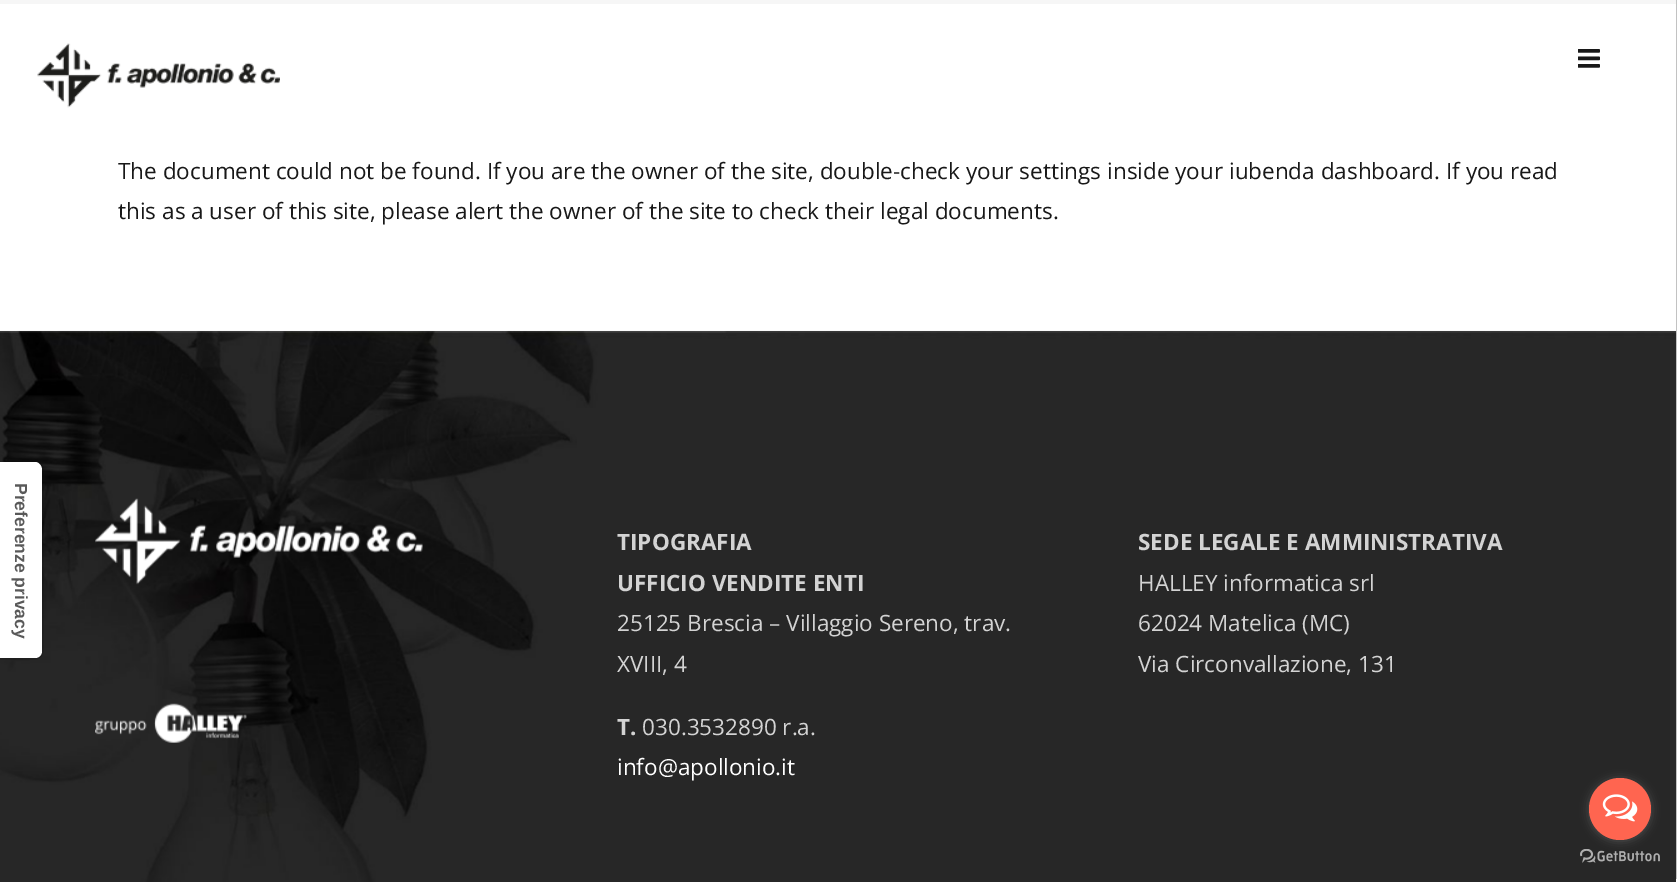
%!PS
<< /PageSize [1680 882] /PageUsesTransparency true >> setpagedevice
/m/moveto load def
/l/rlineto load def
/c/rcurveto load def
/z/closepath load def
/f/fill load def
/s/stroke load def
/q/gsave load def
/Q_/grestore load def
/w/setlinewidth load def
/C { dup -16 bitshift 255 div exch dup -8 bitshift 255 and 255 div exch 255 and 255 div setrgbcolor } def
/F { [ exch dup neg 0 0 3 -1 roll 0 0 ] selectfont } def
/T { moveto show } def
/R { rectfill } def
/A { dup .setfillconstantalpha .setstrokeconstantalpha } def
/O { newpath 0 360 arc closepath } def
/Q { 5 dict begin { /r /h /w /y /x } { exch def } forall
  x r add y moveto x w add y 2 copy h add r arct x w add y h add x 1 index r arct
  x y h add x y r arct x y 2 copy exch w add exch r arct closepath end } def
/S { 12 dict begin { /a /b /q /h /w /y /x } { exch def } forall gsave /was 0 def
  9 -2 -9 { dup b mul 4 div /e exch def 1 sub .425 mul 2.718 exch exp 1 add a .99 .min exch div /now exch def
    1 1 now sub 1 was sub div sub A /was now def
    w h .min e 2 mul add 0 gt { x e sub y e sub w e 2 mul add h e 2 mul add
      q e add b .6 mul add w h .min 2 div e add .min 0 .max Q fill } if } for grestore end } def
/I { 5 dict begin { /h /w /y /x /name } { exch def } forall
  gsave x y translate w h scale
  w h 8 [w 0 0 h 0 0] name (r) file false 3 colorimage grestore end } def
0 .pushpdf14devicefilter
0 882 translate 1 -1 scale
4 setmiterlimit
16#F6F6F6 C
0 0 1680 882 R
16#FFFFFF C
0 4 1676 327 R
16#272727 C
0 331 1676 1 R
(3.rgb) 0 330 1676 552 I
0.15 A
16#000000 C
1.2 w
43 470 m 0 180.5 l 0 4.5 -3.5 8.5 -8 8.5 c -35.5 0 l 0 -197 l 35.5 0 l 4.5 0 8 3.5 8 8 c z s
1 A
16#FFFFFF C
42 470 m 0 181 l 0 4 -3 7 -7 7 c -35 0 l 0 -196 l 35 0 l 4 0 7 4 7 8 c z f
/LiberationSans-Bold 17.5 F
16#595959 C
q 15 483 translate 90 rotate 0 0 m (Preferenze privacy) show Q_
(1.rgb) 37 43 243 65 I
(2.rgb) 1578 49 22 19 I
16#FFFFFF C
1676 879 4 3 R
1677 0 3 879 R
16#C2C2C2 C
1676 0 1 879 R
/OpenSans-Regular 22.5 F
16#181818 C
(The document could not be found. If you are the owner of the site, double-check your settings inside your iubenda dashboard. If you read) 118 179 T
(this as a user of this site, please alert the owner of the site to check their legal documents.) 118 219 T
(4.rgb) 95 498 328 87 I
(5.rgb) 95 703 152 40 I
/OpenSans-Bold 22.5 F
16#D3D3D3 C
(TIPOGRAFIA) 617 550 T
(UFFICIO VENDITE ENTI) 617 591 T
/OpenSans-Regular 22.5 F
(25125 Brescia – Villaggio Sereno, trav.) 617 631 T
(XVIII, 4) 617 672 T
/OpenSans-Bold 22.5 F
(T.) 617 735 T
/OpenSans-Regular 22.5 F
(030.3532890 r.a.) 642 735 T
16#FFFFFF C
(info@apollonio.it) 617 775 T
/OpenSans-Bold 22.5 F
16#D3D3D3 C
(SEDE LEGALE E AMMINISTRATIVA) 1138 550 T
/OpenSans-Regular 22.5 F
(HALLEY informatica srl) 1138 591 T
(62024 Matelica \(MC\)) 1138 631 T
(Via Circonvallazione, 131) 1138 672 T
(7.rgb) 1580 849 80 14 I
16#888888 C
1589 779 62 62 31 4.5 .4 S
16#FF6550 C
1620 809 31 O f
(6.rgb) 1602 794 36 28 I
.poppdf14devicefilter showpage
